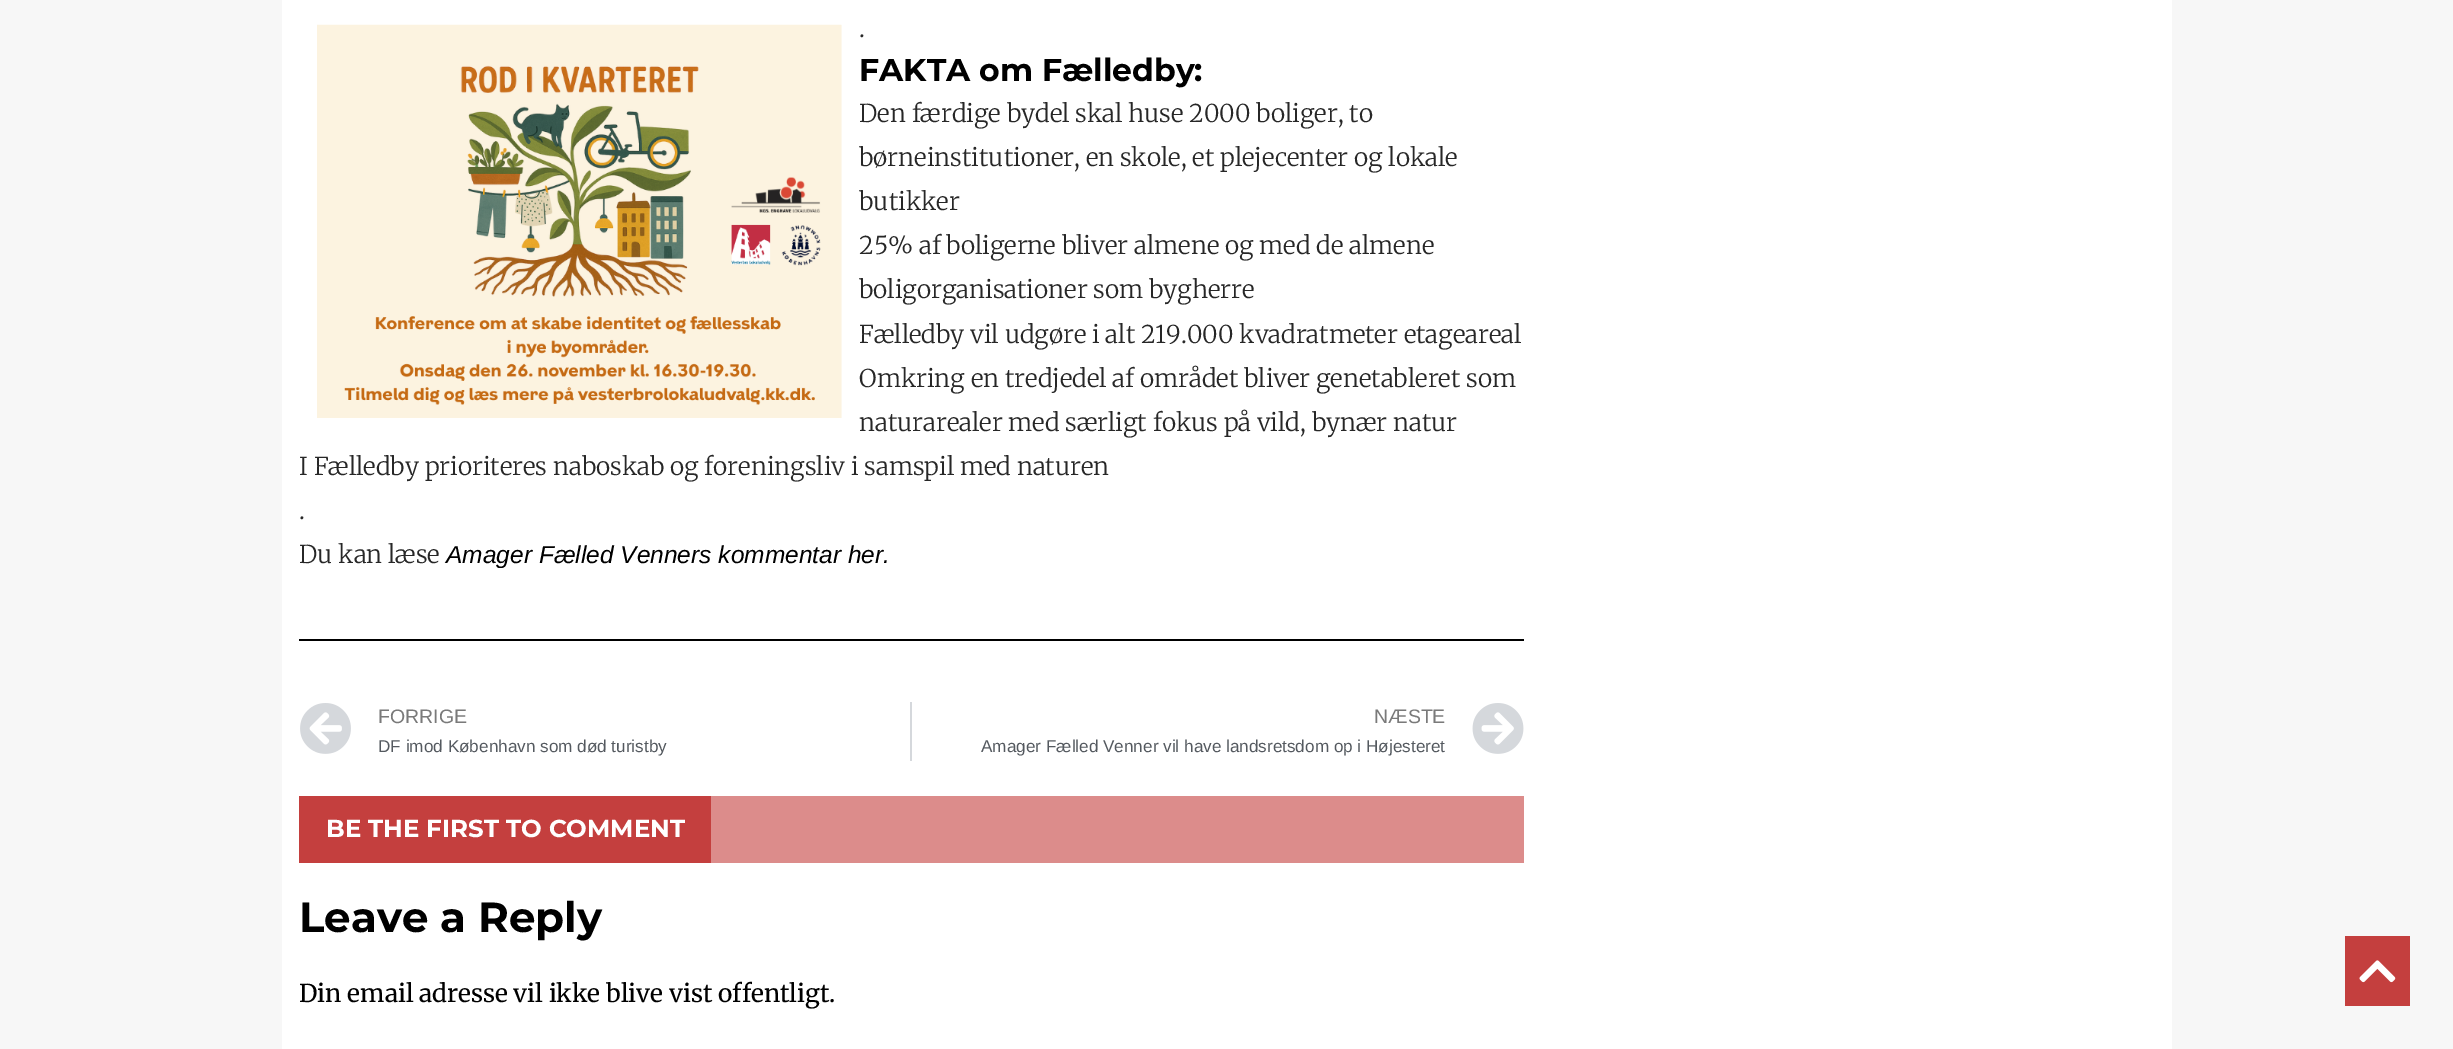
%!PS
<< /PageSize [2453 1049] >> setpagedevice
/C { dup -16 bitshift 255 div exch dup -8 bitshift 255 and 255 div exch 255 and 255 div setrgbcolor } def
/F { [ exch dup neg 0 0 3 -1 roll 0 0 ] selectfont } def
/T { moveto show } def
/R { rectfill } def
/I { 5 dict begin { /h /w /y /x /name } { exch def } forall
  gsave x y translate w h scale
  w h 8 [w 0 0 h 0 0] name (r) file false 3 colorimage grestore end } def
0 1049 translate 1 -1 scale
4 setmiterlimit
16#F7F7F7 C
0 0 2453 1049 R
16#FFFFFF C
282 0 1890 1049 R
(1.rgb) 317 24 525 394 I
/Merriweather-Light 24.5 F
16#272727 C
(.) 859 37 T
/Montserrat-Thin 31.5 F
16#000000 C
(FAKTA om Fælledby:) 859 81 T
/Merriweather-Light 24.5 F
16#272727 C
(Den færdige bydel skal huse 2000 boliger, to) 859 122 T
(børneinstitutioner, en skole, et plejecenter og lokale) 859 166 T
(butikker) 859 210 T
(25% af boligerne bliver almene og med de almene) 859 254 T
(boligorganisationer som bygherre) 859 298 T
(Fælledby vil udgøre i alt 219.000 kvadratmeter etageareal) 859 343 T
(Omkring en tredjedel af området bliver genetableret som) 859 387 T
(naturarealer med særligt fokus på vild, bynær natur) 859 431 T
(I Fælledby prioriteres naboskab og foreningsliv i samspil med naturen) 299 475 T
(.) 299 519 T
(Du kan læse) 299 563 T
/LiberationSans-Italic 24.5 F
16#000000 C
(Amager Fælled Venners kommentar her.) 446 563 T
299 639 1225 2 R
(2.rgb) 300 703 51 51 I
/LiberationSans-Regular 19.5 F
16#7A7A7A C
(FORRIGE) 378 723 T
/LiberationSans-Regular 17.15 F
16#54595F C
(DF imod København som død turistby) 378 752 T
16#D5D8DC C
910 702 2 59 R
/LiberationSans-Regular 19.5 F
16#7A7A7A C
(NÆSTE) 1374 723 T
/LiberationSans-Regular 17.15 F
16#54595F C
(Amager Fælled Venner vil have landsretsdom op i Højesteret) 981 752 T
(3.rgb) 1472 703 52 51 I
16#DC8C8B C
711 796 813 67 R
16#C43F3E C
299 796 412 67 R
/Montserrat-Thin 24.5 F
16#FFFFFF C
(BE THE FIRST TO COMMENT) 326 837 T
/Montserrat-Thin 42 F
16#000000 C
(Leave a Reply) 299 932 T
/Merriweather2-Light 24.5 F
(Din email adresse vil ikke blive vist offentligt.) 299 1002 T
16#C43F3E C
2345 936 65 70 R
(4.rgb) 2359 960 37 23 I
showpage
